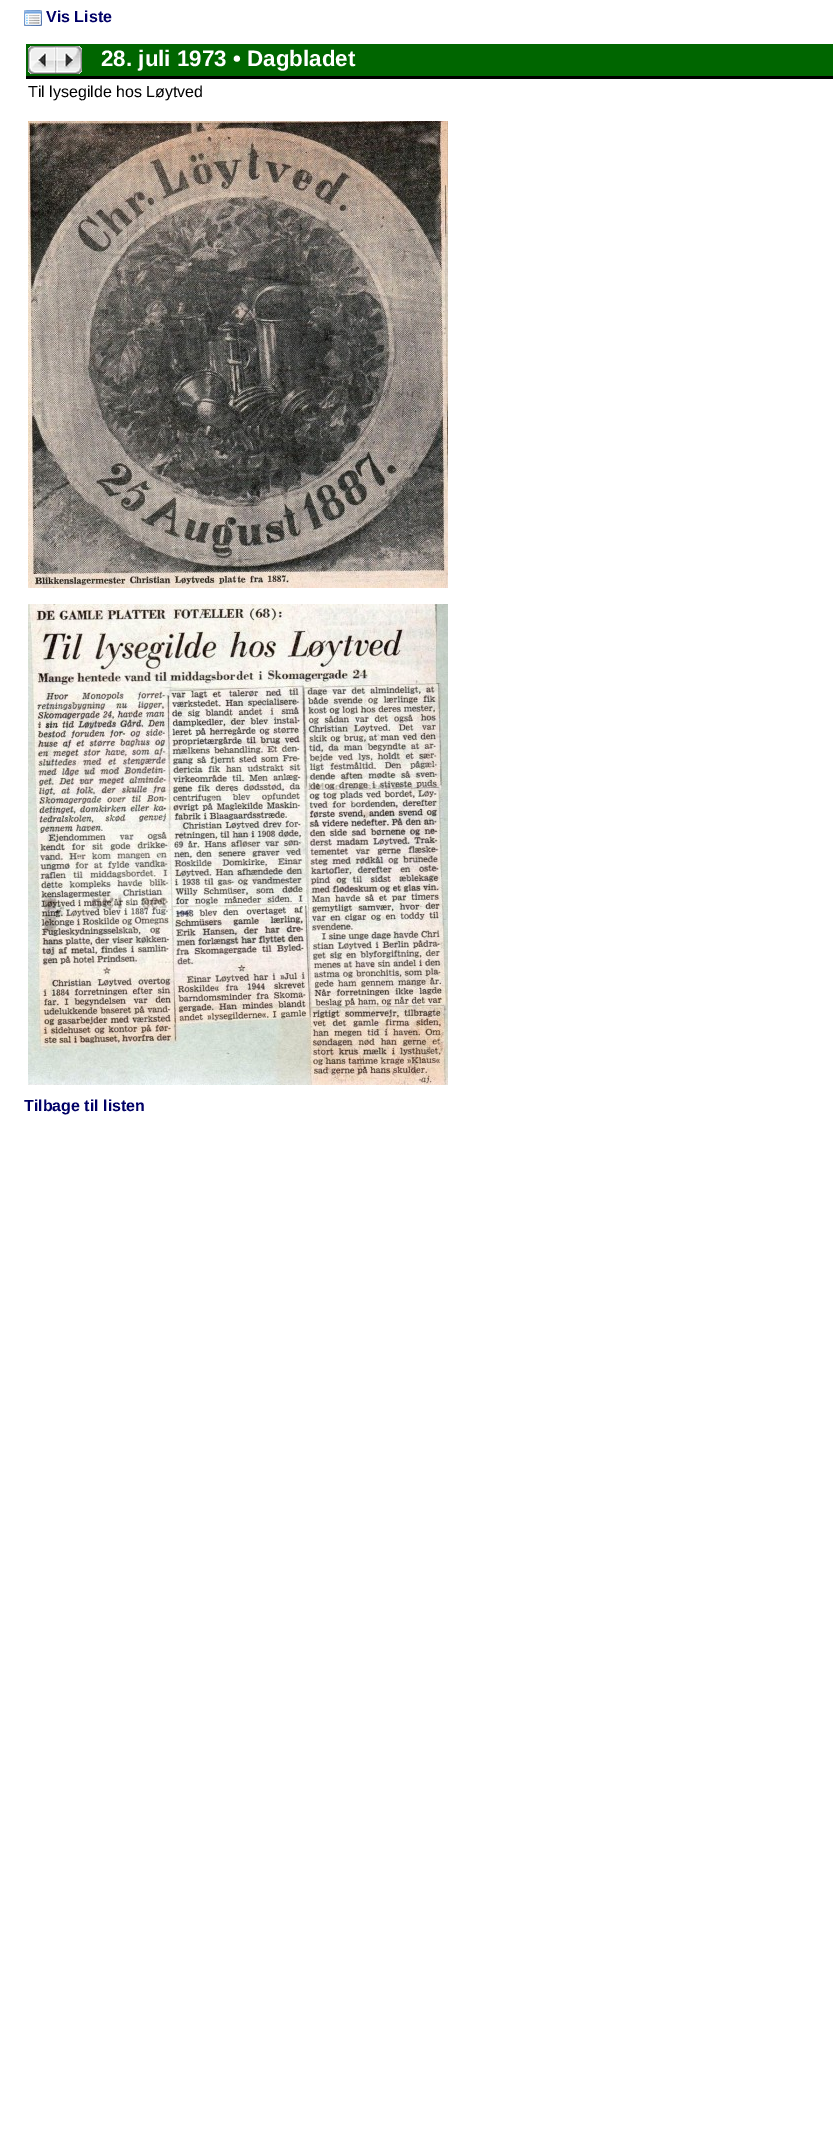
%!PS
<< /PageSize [833 2132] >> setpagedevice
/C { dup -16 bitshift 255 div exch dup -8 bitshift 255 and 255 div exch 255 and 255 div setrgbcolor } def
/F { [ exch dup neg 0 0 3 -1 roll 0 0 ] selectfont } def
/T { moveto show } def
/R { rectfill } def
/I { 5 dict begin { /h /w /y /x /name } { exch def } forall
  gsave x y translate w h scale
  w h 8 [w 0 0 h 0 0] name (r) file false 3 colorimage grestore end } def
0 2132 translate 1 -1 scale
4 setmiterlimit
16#FFFFFF C
0 0 833 2132 R
(1.rgb) 24 10 18 16 I
/LiberationSans-Bold 16 F
16#000066 C
(Vis Liste) 46 22 T
16#006600 C
26 44 807 32 R
16#000000 C
26 76 807 3 R
(2.rgb) 28 46 27 28 I
(3.rgb) 55 46 27 28 I
/LiberationSans-Bold 22.4 F
16#FFFFFF C
(28. juli 1973 • Dagbladet) 101 66 T
/LiberationSans-Regular 16 F
16#000000 C
(Til lysegilde hos Løytved) 28 97 T
(4.rgb) 28 121 420 467 I
(5.rgb) 28 604 420 481 I
/LiberationSans-Bold 16 F
16#000066 C
(Tilbage til listen) 24 1111 T
showpage
